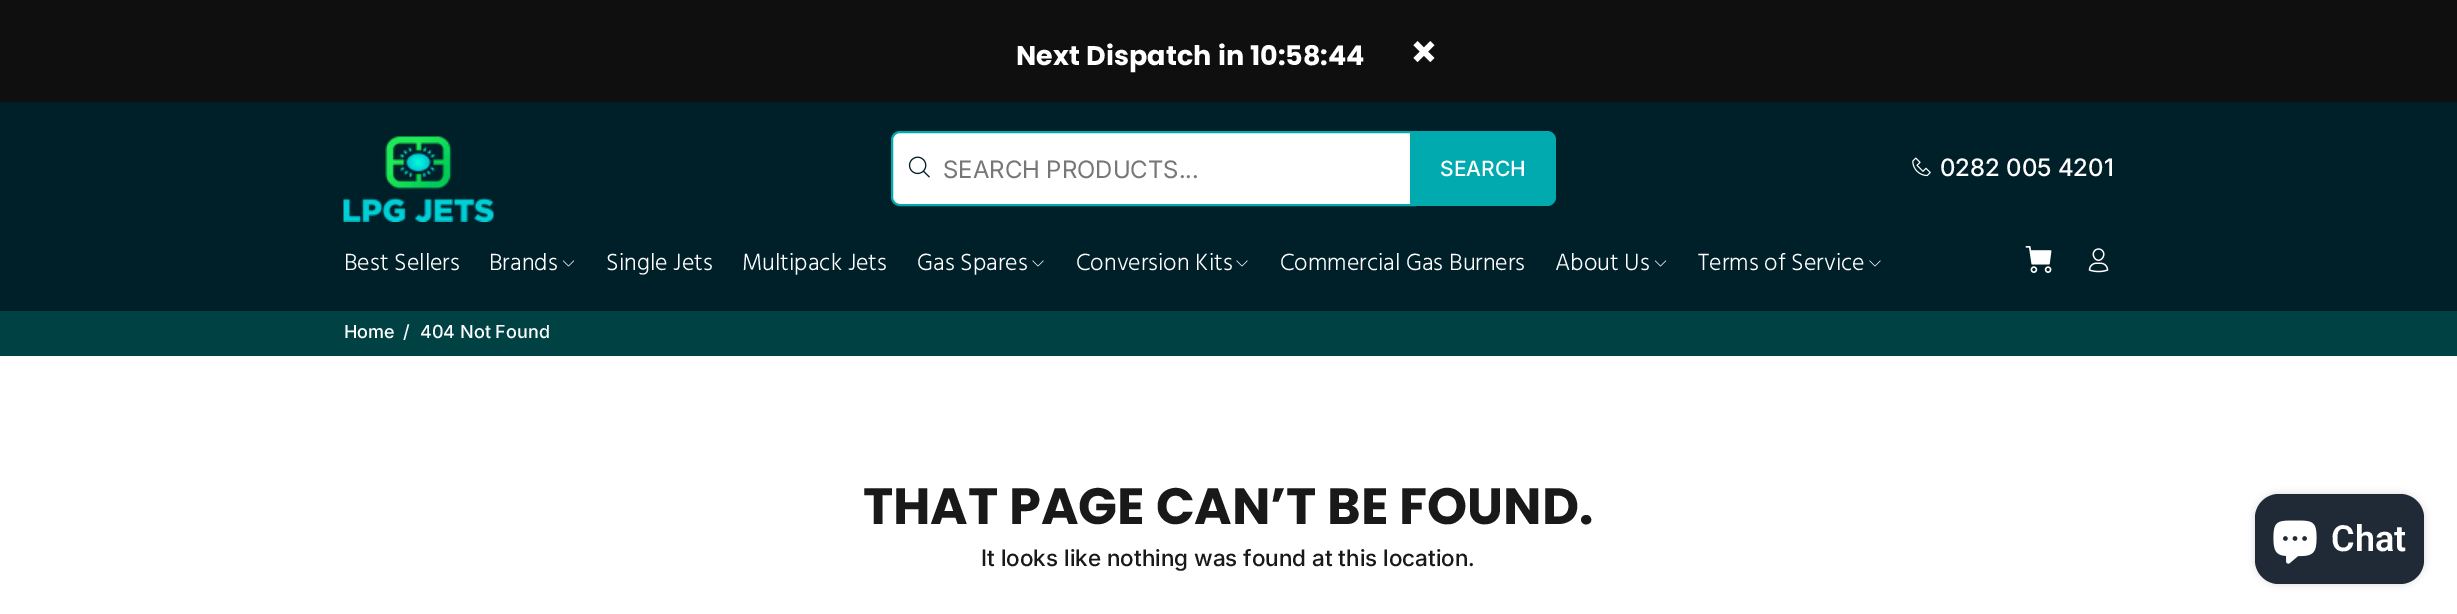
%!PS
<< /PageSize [2457 614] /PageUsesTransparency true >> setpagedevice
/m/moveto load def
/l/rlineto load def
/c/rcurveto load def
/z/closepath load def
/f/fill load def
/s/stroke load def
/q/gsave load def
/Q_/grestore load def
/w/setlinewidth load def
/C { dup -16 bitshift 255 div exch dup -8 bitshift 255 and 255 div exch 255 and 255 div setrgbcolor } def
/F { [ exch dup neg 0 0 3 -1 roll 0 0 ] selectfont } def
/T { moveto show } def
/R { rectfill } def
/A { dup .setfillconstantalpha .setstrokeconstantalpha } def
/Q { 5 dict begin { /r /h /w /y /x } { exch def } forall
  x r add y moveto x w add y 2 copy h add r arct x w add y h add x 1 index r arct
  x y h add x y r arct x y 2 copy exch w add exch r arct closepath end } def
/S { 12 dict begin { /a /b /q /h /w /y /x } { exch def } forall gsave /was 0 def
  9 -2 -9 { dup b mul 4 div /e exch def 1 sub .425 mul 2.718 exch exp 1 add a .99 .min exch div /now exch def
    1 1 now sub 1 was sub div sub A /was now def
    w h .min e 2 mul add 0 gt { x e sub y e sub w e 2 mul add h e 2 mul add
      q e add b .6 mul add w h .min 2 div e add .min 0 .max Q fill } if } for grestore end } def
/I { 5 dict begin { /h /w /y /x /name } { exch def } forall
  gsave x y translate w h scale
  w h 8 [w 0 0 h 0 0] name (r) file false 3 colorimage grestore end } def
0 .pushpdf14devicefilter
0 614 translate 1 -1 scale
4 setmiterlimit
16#FFFFFF C
0 0 2457 614 R
16#002029 C
0 102 2457 209 R
16#0F0F0F C
0 0 2457 102 R
/Poppins-Bold 27 F
16#FFFFFF C
1016 65 m 1 0 32 (Next Dispatch in) widthshow
(10:58:44) 1250 65 T
(1.rgb) 1413 41 22 22 I
(2.rgb) 343 136 151 86 I
900 132 m 515 0 l 0 73 l -515 0 l -4.5 0 -8 -3.5 -8 -8 c 0 -57 l 0 -4.5 3.5 -8 8 -8 c z q f Q_
16#00AAAE C
2 w
s
(3.rgb) 908 156 22 22 I
/Inter-Regular 24 F
16#777777 C
(SEARCH PRODUCTS...) 943 178 T
16#00AAAE C
1410 131 m 137 0 l 5 0 9 4 9 9 c 0 57 l 0 5 -4 9 -9 9 c -137 0 l z f
/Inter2-Medium 21 F
16#FFFFFF C
(SEARCH) 1440 176 T
(4.rgb) 1912 157 19 20 I
/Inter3-Medium 24 F
(0282 005 4201) 1940 176 T
/Hind-Light 24 F
(Best Sellers) 344 270 T
(Brands) 489 270 T
(5.rgb) 562 260 13 7 I
(Single Jets) 606 270 T
(Multipack Jets) 742 270 T
(Gas Spares) 917 270 T
(6.rgb) 1032 260 12 7 I
(Conversion Kits) 1076 270 T
(6.rgb) 1236 260 12 7 I
(Commercial Gas Burners) 1280 270 T
(About Us) 1555 270 T
(5.rgb) 1654 260 13 7 I
(Terms of Service) 1698 270 T
(6.rgb) 1869 260 12 7 I
(7.rgb) 2025 246 27 27 I
(8.rgb) 2088 248 21 25 I
16#004143 C
0 311 2457 45 R
/Inter2-Medium 18 F
16#FFFFFF C
(Home) 344 338 T
(/) 403 338 T
(404 Not Found) 420 338 T
/Poppins-Bold 51 F
16#191919 C
(THAT PAGE CAN’T BE FOUND.) 863 524 T
/Inter-Medium 22.5 F
(It looks like nothing was found at this location.) 981 566 T
16#000000 C
2255 494 169 90 24 4 .15 S
16#202A36 C
2255 494 169 90 24 Q f
(9.rgb) 2273 520 44 44 I
/Roboto-SemiBold 36 F
16#FFFFFF C
(Chat) 2331 551 T
.poppdf14devicefilter showpage
